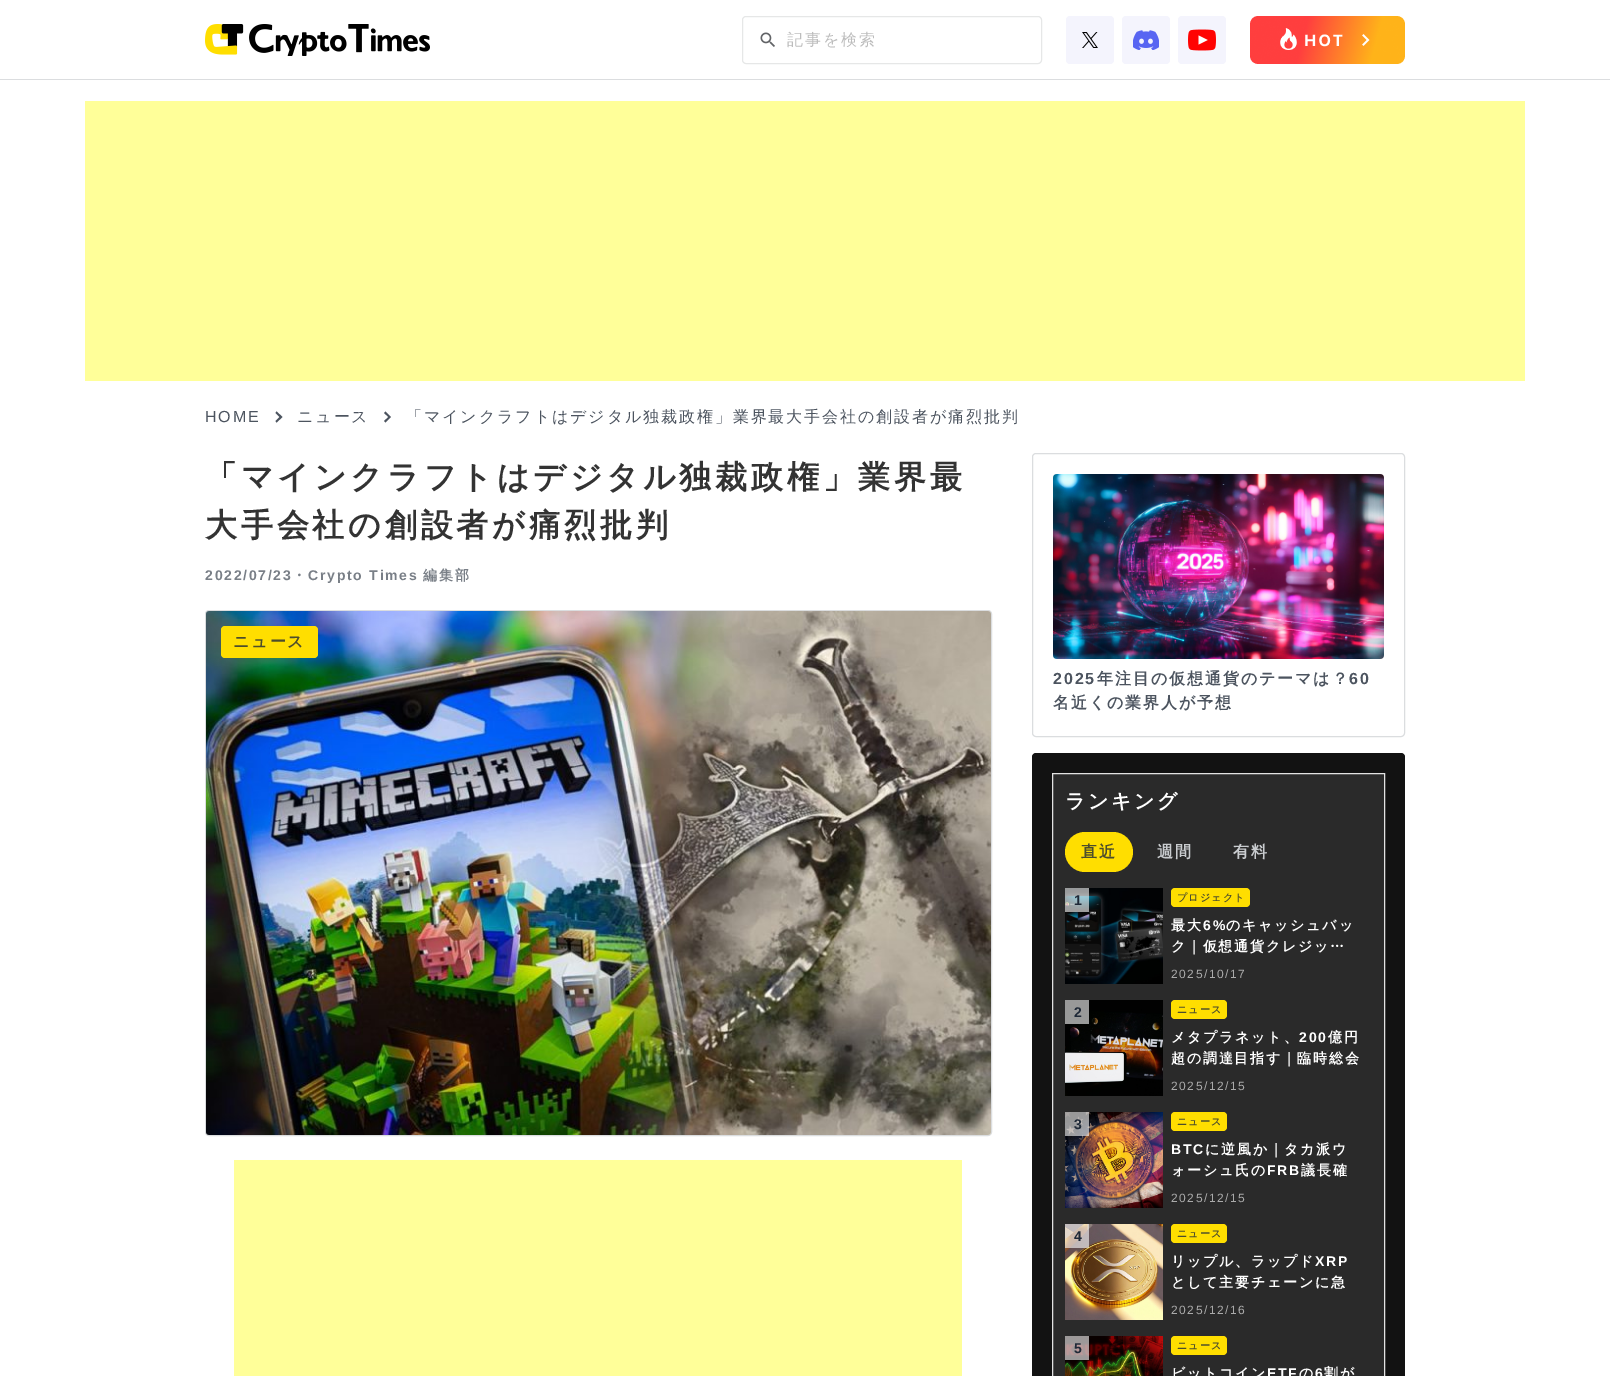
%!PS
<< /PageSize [1610 1376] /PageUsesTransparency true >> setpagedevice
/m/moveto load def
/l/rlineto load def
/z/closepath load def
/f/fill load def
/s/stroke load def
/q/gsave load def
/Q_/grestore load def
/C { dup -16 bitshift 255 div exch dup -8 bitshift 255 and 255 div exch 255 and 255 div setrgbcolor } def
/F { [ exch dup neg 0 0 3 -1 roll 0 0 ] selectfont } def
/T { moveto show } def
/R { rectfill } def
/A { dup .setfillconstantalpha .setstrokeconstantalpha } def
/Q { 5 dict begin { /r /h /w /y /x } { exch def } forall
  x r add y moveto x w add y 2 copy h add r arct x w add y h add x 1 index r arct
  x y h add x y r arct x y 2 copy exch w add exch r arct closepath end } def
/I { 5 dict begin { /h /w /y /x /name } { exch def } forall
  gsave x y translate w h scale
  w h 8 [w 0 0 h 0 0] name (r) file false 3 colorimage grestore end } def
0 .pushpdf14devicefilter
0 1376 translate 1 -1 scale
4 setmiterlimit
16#FFFFFF C
0 0 1610 1376 R
16#DBDDDF C
0 79 1610 1 R
(1.rgb) 205 24 225 32 I
16#E6E7E7 C
742.5 16.5 299 47 3.5 Q s
(2.rgb) 760 32 15 15 I
/WenQuanYiZenHei-Medium 16 F
16#BDBDBD C
787 45 m 1.9 0 (記事を検索) ashow
16#F4F4FD C
1066 16 48 48 4 Q f
(3.rgb) 1082 32 16 16 I
1122 16 48 48 4 Q f
(4.rgb) 1133 30 26 20 I
1178 16 48 48 4 Q f
(5.rgb) 1188 29 28 22 I
(6.rgb) 1250 16 155 48 I
16#FFFF99 C
85 101 1440 280 R
/LiberationSans-Regular 16 F
16#4C545F C
205 422 m 1.9 0 (HOME) ashow
276.5 411.5 m 6 5.5 l -3 0 l -4 -4 l z 282.5 417 m -6 5.5 l -1 -1.5 l 4 -4 l z f
/WenQuanYiZenHei-Medium 16 F
297 422 m 1.9 0 (ニュース) ashow
385.5 411.5 m 5.5 5.5 l -2.5 0 l -4.5 -4 l z 391 417 m -5.5 5.5 l -1.5 -1.5 l 4.5 -4 l z f
406 422 m 1.9 0 (「マインクラフトはデジタル独裁政権」業界最大手会社の創設者が痛烈批判) ashow
/WenQuanYiZenHei-Bold 32 F
16#333333 C
205 488 m 3.8 0 (「マインクラフトはデジタル独裁政権」業界最) ashow
205 536 m 3.8 0 (大手会社の創設者が痛烈批判) ashow
/LiberationSans-Bold 14 F
16#797F87 C
205 580 m 1.75 0 (2022/07/23) ashow
/WenQuanYiZenHei-Bold 14 F
292 580 m 1.75 0 (・) ashow
/LiberationSans-Bold 14 F
308 580 m 1.75 0 (Crypto Times) ashow
/WenQuanYiZenHei-Bold 14 F
423 580 m 1.75 0 (編集部) ashow
16#DBDDDF C
205.5 610.5 786 525 3.5 Q s
(7.rgb) 206 611 785 524 I
16#FFDE00 C
221 626 97 32 4 Q f
/WenQuanYiZenHei-Bold 16 F
16#4C4D2C C
233 647 m 1.9 0 (ニュース) ashow
16#FFFF99 C
234 1160 728 216 R
16#DBDDDF C
1032.5 453.5 372 283 3.5 Q s
(8.rgb) 1053 474 331 185 I
/LiberationSans-Bold 16 F
16#4C545F C
1053 684 m 1.9 0 (2025) ashow
/WenQuanYiZenHei-Bold 16 F
1097 684 m 1.9 0 (年注目の仮想通貨のテーマは？) ashow
/LiberationSans-Bold 16 F
1349 684 m 1.9 0 (60) ashow
/WenQuanYiZenHei-Bold 16 F
1053 708 m 1.9 0 (名近くの業界人が予想) ashow
16#121212 C
1032 753 373 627 4 Q f
16#2A2A2A C
1052.5 773.5 m 332 0 l 0 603 l -332 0 l z q f Q_
16#E3E3E3 C
s
/WenQuanYiZenHei-Bold 20 F
16#FFFFFF C
1065 808 m 2.5 0 (ランキング) ashow
16#FFDE00 C
1065 832 68 40 20 Q f
/WenQuanYiZenHei-Bold 16 F
16#4C4D2C C
1081 857 m 1.9 0 (直近) ashow
16#C9CCCF C
1157 857 m 1.9 0 (週間) ashow
1233 857 m 1.9 0 (有料) ashow
(9.rgb) 1065 888 98 96 I
0.6 A
16#FFFFFF C
1065 888 24 24 R
/LiberationSans-Bold 14 F
1 A
16#1F2937 C
(1) 1074 905 T
16#FFDE00 C
1171 888 79 19 4 Q f
/WenQuanYiZenHei-Bold 10 F
16#4C4D2C C
1177 901 m 1.25 0 (プロジェクト) ashow
/WenQuanYiZenHei-Bold 14 F
16#FFFFFF C
1171 930 m 1.75 0 (最大) ashow
/LiberationSans-Bold 14 F
1203 930 m 1.75 0 (6%) ashow
/WenQuanYiZenHei-Bold 14 F
1226 930 m 1.75 0 (のキャッシュバッ) ashow
1171 951 m 1.75 0 (ク｜仮想通貨クレジッ…) ashow
/LiberationSans-Regular 12 F
16#AAAAAA C
1171 978 m 1.5 0 (2025/10/17) ashow
(10.rgb) 1065 1000 98 96 I
0.6 A
16#FFFFFF C
1065 1000 24 24 R
/LiberationSans-Bold 14 F
1 A
16#1F2937 C
(2) 1074 1017 T
16#FFDE00 C
1171 1000 56 19 4 Q f
/WenQuanYiZenHei-Bold 10 F
16#4C4D2C C
1177 1013 m 1.25 0 (ニュース) ashow
/WenQuanYiZenHei-Bold 14 F
16#FFFFFF C
1171 1042 m 1.75 0 (メタプラネット、) ashow
/LiberationSans-Bold 14 F
1299 1042 m 1.75 0 (200) ashow
/WenQuanYiZenHei-Bold 14 F
1328 1042 m 1.75 0 (億円) ashow
1171 1063 m 1.75 0 (超の調達目指す｜臨時総会) ashow
/LiberationSans-Regular 12 F
16#AAAAAA C
1171 1090 m 1.5 0 (2025/12/15) ashow
(11.rgb) 1065 1112 98 96 I
0.6 A
16#FFFFFF C
1065 1112 24 24 R
/LiberationSans-Bold 14 F
1 A
16#1F2937 C
(3) 1074 1129 T
16#FFDE00 C
1171 1112 56 19 4 Q f
/WenQuanYiZenHei-Bold 10 F
16#4C4D2C C
1177 1125 m 1.25 0 (ニュース) ashow
/LiberationSans-Bold 14 F
16#FFFFFF C
1171 1154 m 1.75 0 (BTC) ashow
/WenQuanYiZenHei-Bold 14 F
1205 1154 m 1.75 0 (に逆風か｜タカ派ウ) ashow
1171 1175 m 1.75 0 (ォーシュ氏の) ashow
/LiberationSans-Bold 14 F
1267 1175 m 1.75 0 (FRB) ashow
/WenQuanYiZenHei-Bold 14 F
1301 1175 m 1.75 0 (議長確) ashow
/LiberationSans-Regular 12 F
16#AAAAAA C
1171 1202 m 1.5 0 (2025/12/15) ashow
(12.rgb) 1065 1224 98 96 I
0.6 A
16#FFFFFF C
1065 1224 24 24 R
/LiberationSans-Bold 14 F
1 A
16#1F2937 C
(4) 1074 1241 T
16#FFDE00 C
1171 1224 56 19 4 Q f
/WenQuanYiZenHei-Bold 10 F
16#4C4D2C C
1177 1237 m 1.25 0 (ニュース) ashow
/WenQuanYiZenHei-Bold 14 F
16#FFFFFF C
1171 1266 m 1.75 0 (リップル、ラップド) ashow
/LiberationSans-Bold 14 F
1315 1266 m 1.75 0 (XRP) ashow
/WenQuanYiZenHei-Bold 14 F
1171 1287 m 1.75 0 (として主要チェーンに急) ashow
/LiberationSans-Regular 12 F
16#AAAAAA C
1171 1314 m 1.5 0 (2025/12/16) ashow
(13.rgb) 1065 1336 98 40 I
0.6 A
16#FFFFFF C
1065 1336 24 24 R
/LiberationSans-Bold 14 F
1 A
16#1F2937 C
(5) 1074 1353 T
16#FFDE00 C
1171 1336 56 19 4 Q f
/WenQuanYiZenHei-Bold 10 F
16#4C4D2C C
1177 1349 m 1.25 0 (ニュース) ashow
/WenQuanYiZenHei-Bold 14 F
16#FFFFFF C
1171 1378 m 1.75 0 (ビットコイン) ashow
/LiberationSans-Bold 14 F
1267 1378 m 1.75 0 (ETF) ashow
/WenQuanYiZenHei-Bold 14 F
1299 1378 m 1.75 0 (の) ashow
/LiberationSans-Bold 14 F
1315 1378 m 1.75 0 (6) ashow
/WenQuanYiZenHei-Bold 14 F
1324 1378 m 1.75 0 (割が) ashow
.poppdf14devicefilter showpage
